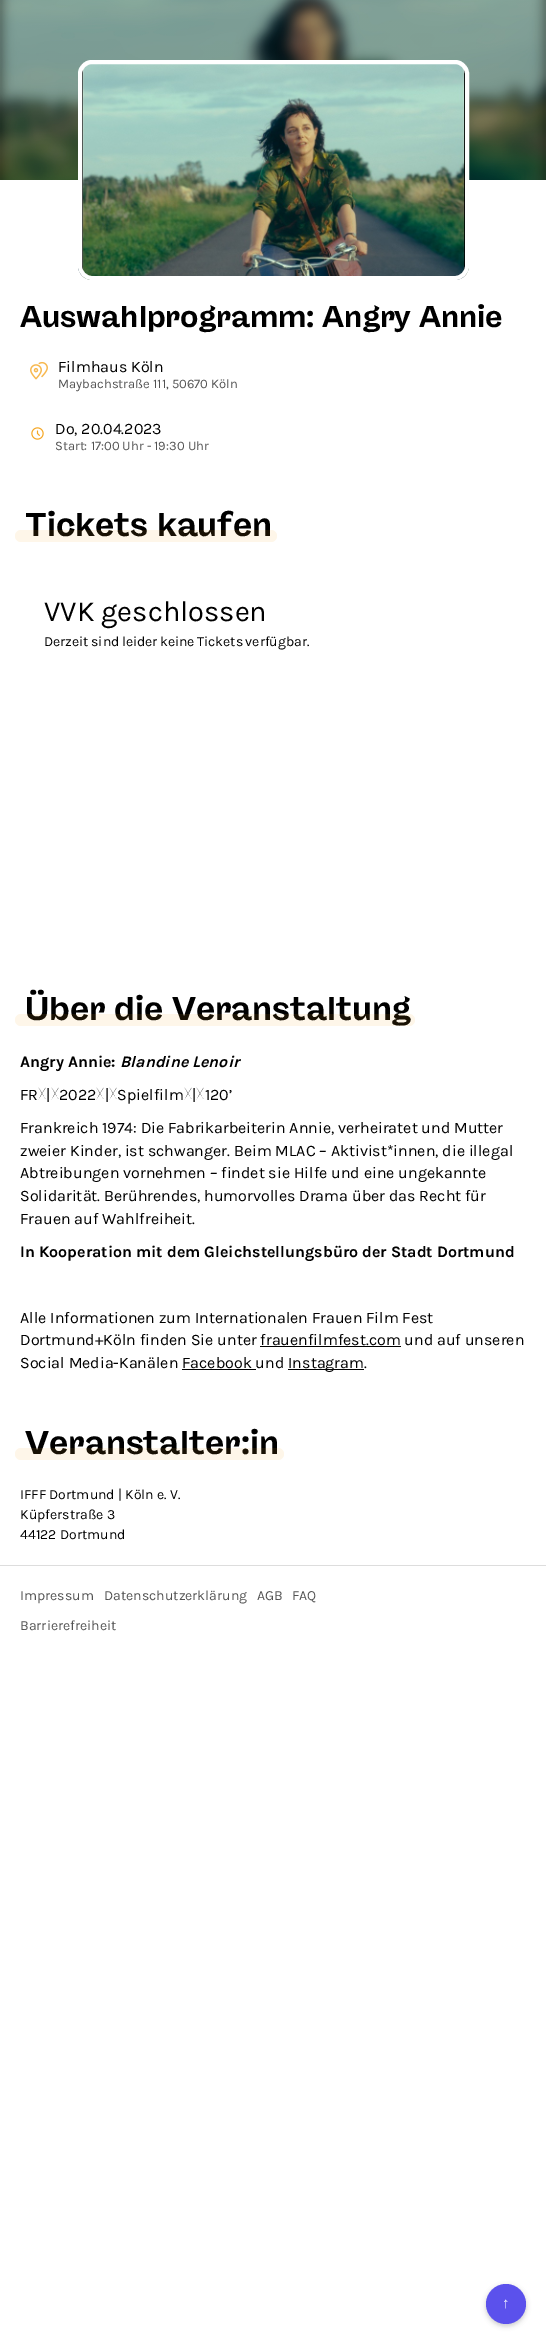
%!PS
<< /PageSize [546 2344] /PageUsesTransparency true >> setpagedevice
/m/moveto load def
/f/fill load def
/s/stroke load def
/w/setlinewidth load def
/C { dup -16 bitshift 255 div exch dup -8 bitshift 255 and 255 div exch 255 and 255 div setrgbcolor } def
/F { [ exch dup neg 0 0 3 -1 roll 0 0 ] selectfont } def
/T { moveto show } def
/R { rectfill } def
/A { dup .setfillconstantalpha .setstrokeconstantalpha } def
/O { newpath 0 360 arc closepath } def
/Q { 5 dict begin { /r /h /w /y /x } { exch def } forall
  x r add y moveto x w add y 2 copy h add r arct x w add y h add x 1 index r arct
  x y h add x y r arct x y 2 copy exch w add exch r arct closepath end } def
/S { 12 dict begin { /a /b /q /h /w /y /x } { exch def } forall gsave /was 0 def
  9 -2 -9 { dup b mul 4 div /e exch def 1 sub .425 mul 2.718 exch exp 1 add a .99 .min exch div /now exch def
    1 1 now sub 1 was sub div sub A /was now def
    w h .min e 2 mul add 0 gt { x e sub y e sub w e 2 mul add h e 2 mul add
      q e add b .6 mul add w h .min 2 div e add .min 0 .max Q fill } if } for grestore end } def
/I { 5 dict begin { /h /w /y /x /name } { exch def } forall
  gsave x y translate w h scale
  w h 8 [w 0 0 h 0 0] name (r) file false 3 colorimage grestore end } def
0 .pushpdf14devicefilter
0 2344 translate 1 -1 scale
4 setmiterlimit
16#FFFFFF C
0 0 546 2344 R
(1.rgb) 0 0 546 180 I
(2.rgb) 78 60 391 220 I
4 w
80 62 387 216 12 Q s
/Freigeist-Bold 30 F
16#000000 C
(Auswahlprogramm: Angry Annie) 20 327 T
(3.rgb) 30 361 18 19 I
/Karla-Regular 16 F
(Filmhaus Köln) 58 372 T
/Karla-Regular 13 F
16#525252 C
(Maybachstraße 111, 50670 Köln) 58 388 T
(4.rgb) 31 427 13 13 I
/Karla-Regular 16 F
16#000000 C
(Do, 20.04.2023) 55 434 T
/Karla-Regular 13 F
16#525252 C
(Start: 17:00 Uhr - 19:30 Uhr) 55 450 T
/Freigeist-Bold 33 F
16#000000 C
(Tickets kaufen) 25 536 T
0.1 A
16#F5A623 C
15 530 262 12 6 Q f
/Karla-Regular 29 F
1 A
16#000000 C
(VVK geschlossen) 44 621 T
/Karla-Regular 14 F
44 646 m -1 0 32 (Derzeit sind leider keine Tickets verfügbar.) widthshow
/Freigeist-Bold 33 F
(Über die Veranstaltung) 25 1020 T
0.1 A
16#F5A623 C
15 1014 400 12 6 Q f
/Karla-Bold 16 F
1 A
16#000000 C
(Angry Annie:) 20 1067 T
/Karla-BoldItalic 16 F
(Blandine Lenoir) 120 1067 T
/Karla-Regular 16 F
(FR | 2022 | Spielfilm | 120’) 20 1100 T
(Frankreich 1974: Die Fabrikarbeiterin Annie, verheiratet und Mutter) 20 1133 T
(zweier Kinder, ist schwanger. Beim MLAC – Aktivist*innen, die illegal) 20 1156 T
(Abtreibungen vornehmen – findet sie Hilfe und eine ungekannte) 20 1178 T
(Solidarität. Berührendes, humorvolles Drama über das Recht für) 20 1201 T
(Frauen auf Wahlfreiheit.) 20 1224 T
/Karla-Bold 16 F
(In Kooperation mit dem Gleichstellungsbüro der Stadt Dortmund) 20 1257 T
/Karla-Regular 16 F
(Alle Informationen zum Internationalen Frauen Film Fest) 20 1323 T
(Dortmund+Köln finden Sie unter frauenfilmfest.com und auf unseren) 20 1345 T
260 1346 141 1 R
(Social Media-Kanälen Facebook und) 20 1368 T
288 1369 76 1 R
(Instagram.) 288 1368 T
182 1369 74 1 R
/Freigeist-Bold 33 F
(Veranstalter:in) 25 1454 T
0.1 A
16#F5A623 C
15 1448 269 12 6 Q f
/Karla-Regular 14 F
1 A
16#000000 C
(IFFF Dortmund | Köln e. V.) 20 1499 T
(Küpferstraße 3) 20 1519 T
(44122 Dortmund) 20 1539 T
16#DDDDDD C
0 1565 546 1 R
16#525252 C
(Impressum) 20 1600 T
(Datenschutzerklärung) 104 1600 T
(AGB) 257 1600 T
(FAQ) 292 1600 T
(Barrierefreiheit) 20 1630 T
16#000000 C
486 2286 40 40 20 2.5 .2 S
16#5B51EC C
506 2304 20 O f
/LiberationSerif-Regular 15 F
16#FFFFFF C
(↑) 502 2308 T
.poppdf14devicefilter showpage
